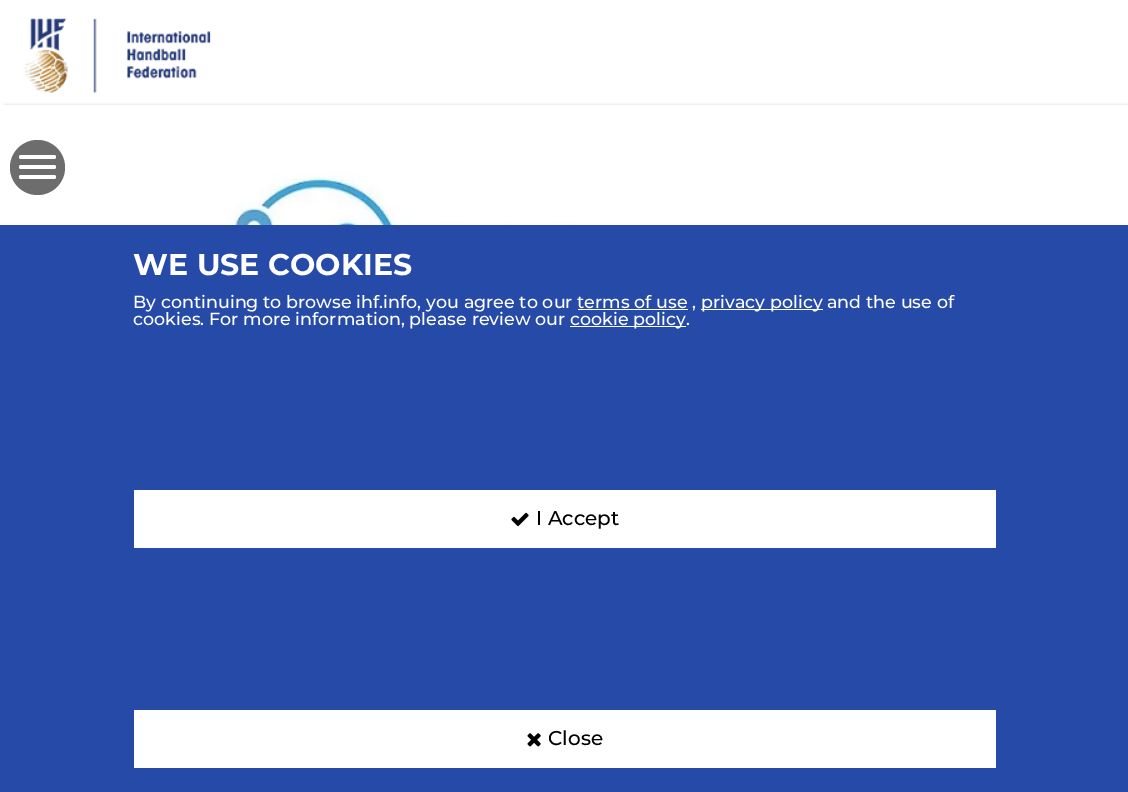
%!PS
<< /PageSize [1128 792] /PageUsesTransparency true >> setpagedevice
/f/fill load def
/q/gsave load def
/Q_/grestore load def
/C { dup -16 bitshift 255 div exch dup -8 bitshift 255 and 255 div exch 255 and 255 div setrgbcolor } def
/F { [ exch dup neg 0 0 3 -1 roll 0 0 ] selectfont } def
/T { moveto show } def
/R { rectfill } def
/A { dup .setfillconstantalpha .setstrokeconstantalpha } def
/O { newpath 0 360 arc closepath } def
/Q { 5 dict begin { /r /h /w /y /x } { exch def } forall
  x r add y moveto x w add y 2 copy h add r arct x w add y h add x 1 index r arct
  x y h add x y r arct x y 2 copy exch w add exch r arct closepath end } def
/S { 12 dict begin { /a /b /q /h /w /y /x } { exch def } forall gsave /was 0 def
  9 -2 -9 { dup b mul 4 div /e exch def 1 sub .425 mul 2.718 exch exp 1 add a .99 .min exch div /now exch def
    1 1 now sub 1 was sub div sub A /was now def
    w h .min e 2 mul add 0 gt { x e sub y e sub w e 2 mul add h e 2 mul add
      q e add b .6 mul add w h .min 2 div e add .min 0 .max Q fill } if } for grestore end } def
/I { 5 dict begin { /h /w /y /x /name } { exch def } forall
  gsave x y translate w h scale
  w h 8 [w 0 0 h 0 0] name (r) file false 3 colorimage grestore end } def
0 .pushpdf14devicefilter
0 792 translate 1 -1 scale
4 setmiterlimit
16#FFFFFF C
0 0 1128 792 R
(1.rgb) 24 18 187 75 I
q
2 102 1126 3 rectclip
16#B7B7B7 C
5 106 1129 352 0 2 1 S
Q_
16#6D6D6D C
37.5 167.5 27.5 O f
16#FFFFFF C
19 155 37 4 2 Q f
19 165 37 4 2 Q f
19 175 37 4 2 Q f
(2.rgb) 203 172 706 53 I
16#264AA8 C
0 225 1128 567 R
/Montserrat-Bold 30 F
16#FFFFFF C
(WE USE COOKIES) 133 275 T
/Montserrat-Medium 17.5 F
(By continuing to browse ihf.info, you agree to our terms of use ,) 133 308 T
701 309 122 1 R
(privacy policy and the use of) 701 308 T
578 309 110 1 R
(cookies. For more information, please review our) 133 325 T
570 326 116 1 R
(cookie policy.) 570 325 T
134 490 862 58 R
(3.rgb) 511 512 18 15 I
/Montserrat-Medium 20 F
16#000000 C
(I Accept) 536 525 T
16#FFFFFF C
134 710 862 58 R
(4.rgb) 527 733 14 14 I
16#000000 C
(Close) 548 745 T
.poppdf14devicefilter showpage
